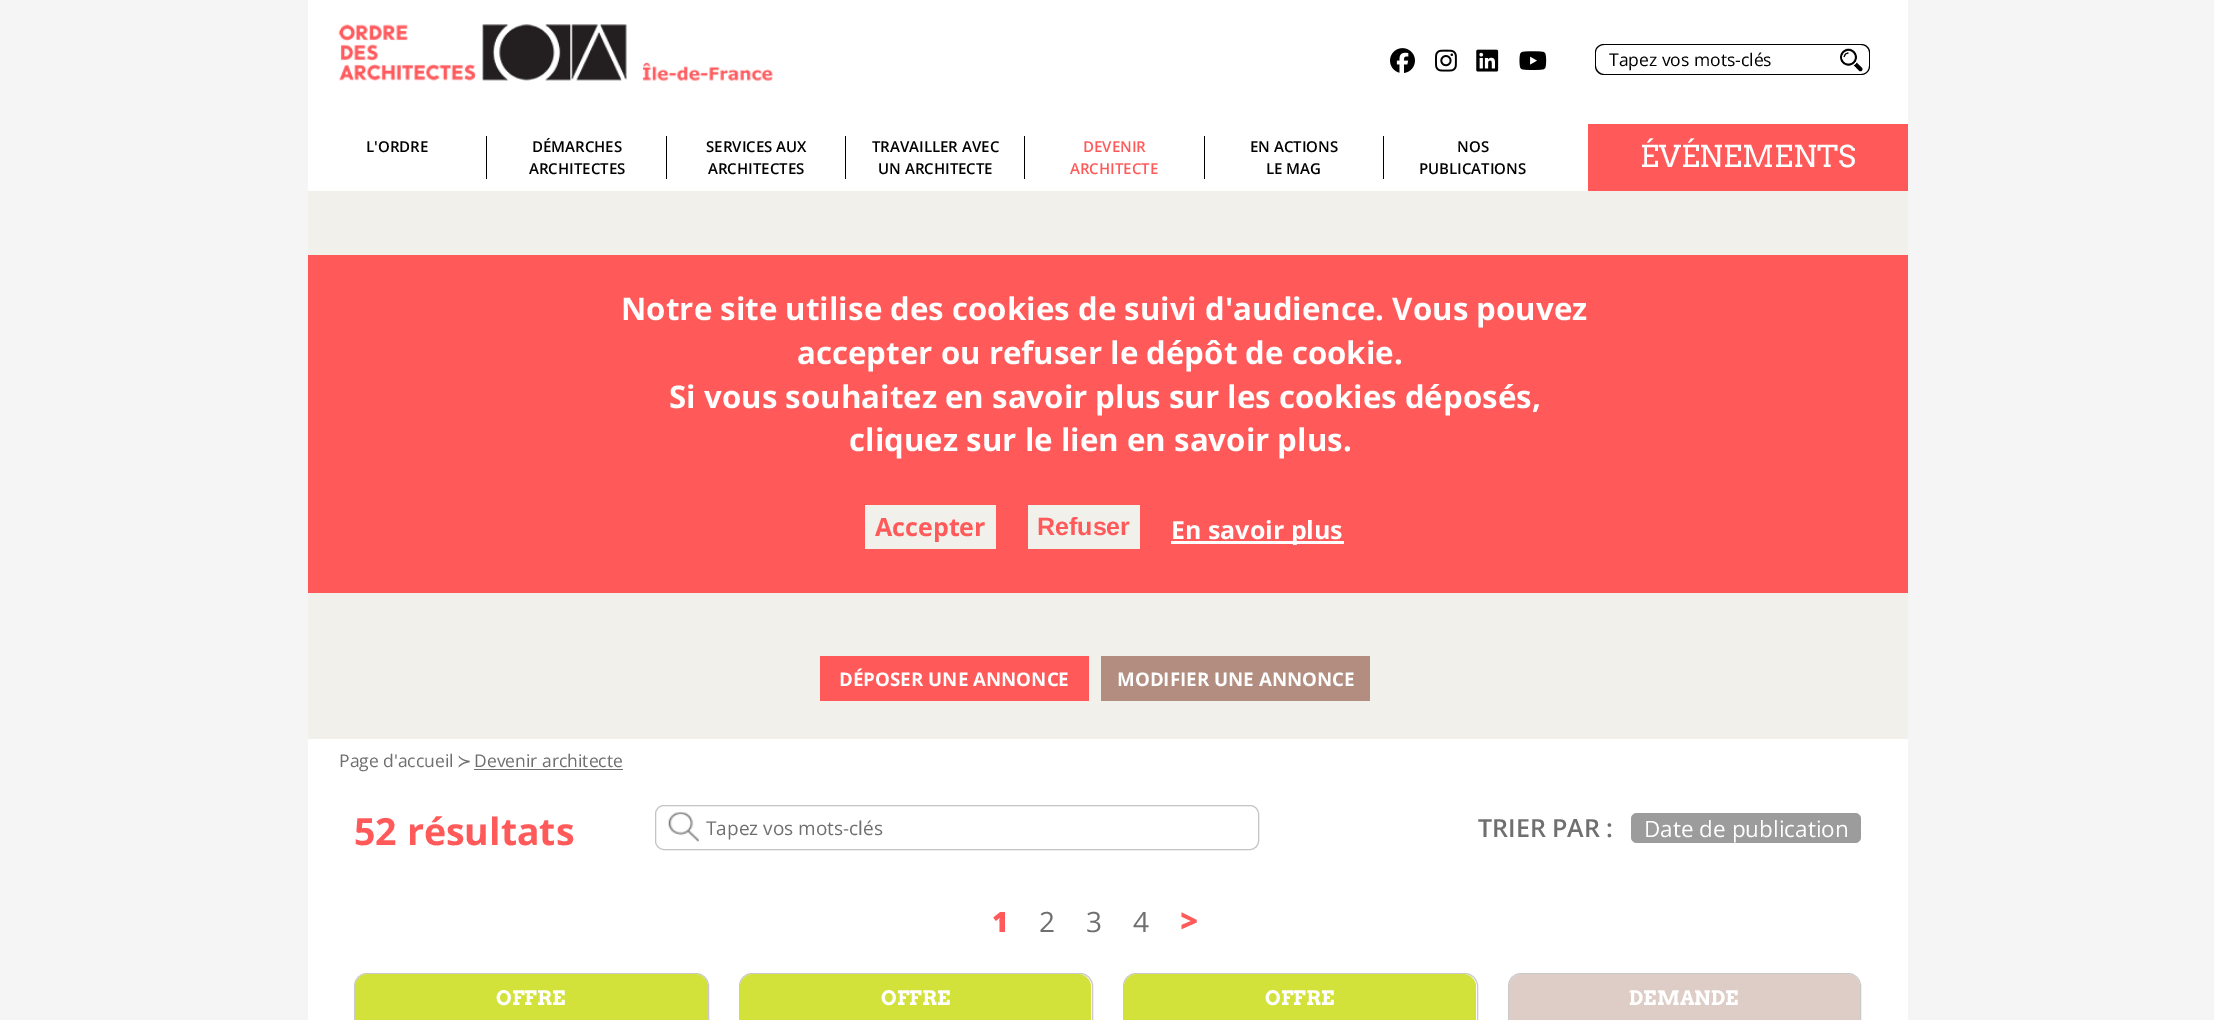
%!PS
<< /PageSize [2214 1020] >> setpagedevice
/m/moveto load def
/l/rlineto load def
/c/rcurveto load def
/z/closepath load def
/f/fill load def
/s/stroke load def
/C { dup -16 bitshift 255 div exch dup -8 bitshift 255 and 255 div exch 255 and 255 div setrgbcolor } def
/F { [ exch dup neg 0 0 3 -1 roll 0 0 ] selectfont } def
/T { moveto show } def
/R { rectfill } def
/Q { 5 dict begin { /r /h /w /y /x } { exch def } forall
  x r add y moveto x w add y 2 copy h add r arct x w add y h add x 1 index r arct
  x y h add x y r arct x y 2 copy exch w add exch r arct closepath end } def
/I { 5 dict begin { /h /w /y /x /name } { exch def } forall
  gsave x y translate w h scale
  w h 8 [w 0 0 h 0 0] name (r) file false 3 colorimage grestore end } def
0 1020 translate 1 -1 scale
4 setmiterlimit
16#F5F5F5 C
0 0 2214 1020 R
16#FFFFFF C
308 0 1600 124 R
(1.rgb) 338 24 435 57 I
(2.rgb) 1390 48 25 25 I
(3.rgb) 1435 49 22 23 I
(4.rgb) 1476 49 23 23 I
(5.rgb) 1519 51 28 19 I
16#000000 C
1604 44 m 236 0 l 0 31 l -236 0 l -5 0 -9 -4 -9 -9 c 0 -14 l 0 -4 4 -8 9 -8 c z 1604 45 m 236 0 l 0 29 l -236 0 l -4 0 -8 -4 -8 -8 c 0 -14 l 0 -4 4 -7 8 -7 c z eofill
/OpenSans-Regular 17.5 F
(Tapez vos mots-clés) 1609 66 T
16#FFFFFF C
1834 44 m 27 0 l 5 0 9 4 9 9 c 0 13 l 0 5 -4 9 -9 9 c -27 0 l z f
(6.rgb) 1840 48 23 24 I
16#000000 C
1834 44 m 27 0 l 5 0 9 3.5 9 8.5 c 0 13.5 l 0 5 -4 9 -9 9 c -27 0 l z 1834 45 m 27 0 l 4.5 0 8 3.5 8 7.5 c 0 13.5 l 0 4.5 -3.5 8 -8 8 c -27 0 l z eofill
16#FFFFFF C
308 124 1280 67 R
/OpenSans-SemiBold 15 F
16#000000 C
(L'ORDRE) 366 152 T
486 136 1 43 R
(DÉMARCHES) 532 152 T
(ARCHITECTES) 529 174 T
666 136 1 43 R
(SERVICES AUX) 706 152 T
(ARCHITECTES) 708 174 T
845 136 1 43 R
(TRAVAILLER AVEC) 872 152 T
(UN ARCHITECTE) 878 174 T
1024 136 1 43 R
16#FF5959 C
(DEVENIR) 1083 152 T
(ARCHITECTE) 1070 174 T
16#000000 C
1204 136 1 43 R
(EN ACTIONS) 1250 152 T
(LE MAG) 1266 174 T
1383 136 1 43 R
(NOS) 1457 152 T
(PUBLICATIONS) 1419 174 T
16#FF5959 C
1588 124 320 67 R
/Arvo-Regular 30 F
16#FFFFFF C
(ÉVÉNEMENTS) 1640 167 T
16#F1F0EA C
308 191 1600 548 R
16#FF5959 C
820 656 269 45 R
/OpenSans-Bold 18.75 F
16#FFFFFF C
(DÉPOSER UNE ANNONCE) 839 686 T
16#B38D80 C
1101 656 269 45 R
16#FFFFFF C
(MODIFIER UNE ANNONCE) 1117 686 T
308 739 1600 281 R
/OpenSans-Regular 17.5 F
16#706F6F C
(Page d'accueil) 339 767 T
/DejaVuSans-Regular 17.5 F
(≻) 457 767 T
/OpenSans-Regular 17.5 F
(Devenir architecte) 474 767 T
474 769 149 1 R
/OpenSans-Bold 37.5 F
16#FF5959 C
(52 résultats) 354 845 T
(7.rgb) 668 812 31 30 I
16#C4C4C4 C
655.5 805.5 603 44 8.5 Q s
/OpenSans-Regular 19 F
16#706F6F C
(Tapez vos mots-clés) 706 835 T
/OpenSans-SemiBold 25 F
(TRIER PAR :) 1478 837 T
16#9C9C9C C
1631 813 230 30 6 Q f
/OpenSans-Regular 22.5 F
16#FFFFFF C
(Date de publication) 1644 837 T
/OpenSans-ExtraBold 28 F
16#FF5959 C
(1) 992 932 T
/OpenSans-Regular 28 F
16#706F6F C
(2) 1039 932 T
(3) 1086 932 T
(4) 1133 932 T
/OpenSans-ExtraBold 31 F
16#FF5959 C
(>) 1180 932 T
16#C9C9C9 C
354.5 973.5 354 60 12.5 Q s
16#D2E23A C
368 974 m 327 0 l 7 0 13 6 13 13 c 0 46 l -353 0 l 0 -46 l 0 -7 6 -13 13 -13 c z f
/Arvo-Bold 20 F
16#FFFFFF C
(OFFRE) 496 1005 T
16#C9C9C9 C
739.5 973.5 353 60 12.5 Q s
16#D2E23A C
753 974 m 325 0 l 7 0 13 6 13 13 c 0 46 l -351 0 l 0 -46 l 0 -7 6 -13 13 -13 c z f
16#FFFFFF C
(OFFRE) 881 1005 T
16#C9C9C9 C
1123.5 973.5 354 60 12.5 Q s
16#D2E23A C
1137 974 m 326 0 l 7 0 13 6 13 13 c 0 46 l -352 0 l 0 -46 l 0 -7 6 -13 13 -13 c z f
16#FFFFFF C
(OFFRE) 1265 1005 T
16#C9C9C9 C
1508.5 973.5 352 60 12.5 Q s
16#DECDC6 C
1522 974 m 325 0 l 7 0 13 6 13 13 c 0 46 l -351 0 l 0 -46 l 0 -7 6 -13 13 -13 c z f
16#FFFFFF C
(DEMANDE) 1629 1005 T
16#FF5959 C
308 255 1600 338 R
/OpenSans-Bold 31.25 F
16#FFFFFF C
(Notre site utilise des cookies de suivi d'audience. Vous pouvez) 621 320 T
(accepter ou refuser le dépôt de cookie.) 797 364 T
(Si vous souhaitez en savoir plus sur les cookies déposés,) 669 408 T
(cliquez sur le lien en savoir plus.) 849 451 T
16#F1F0EA C
865 505 131 44 R
/OpenSans-Bold 25 F
16#FF5959 C
(Accepter) 875 536 T
16#F1F0EA C
1028 505 112 44 R
/LiberationSans-Bold 25 F
16#FF5959 C
(Refuser) 1037 535 T
16#FFFFFF C
1171 541 173 3 R
/OpenSans-Bold 25 F
(En savoir plus) 1171 539 T
showpage
